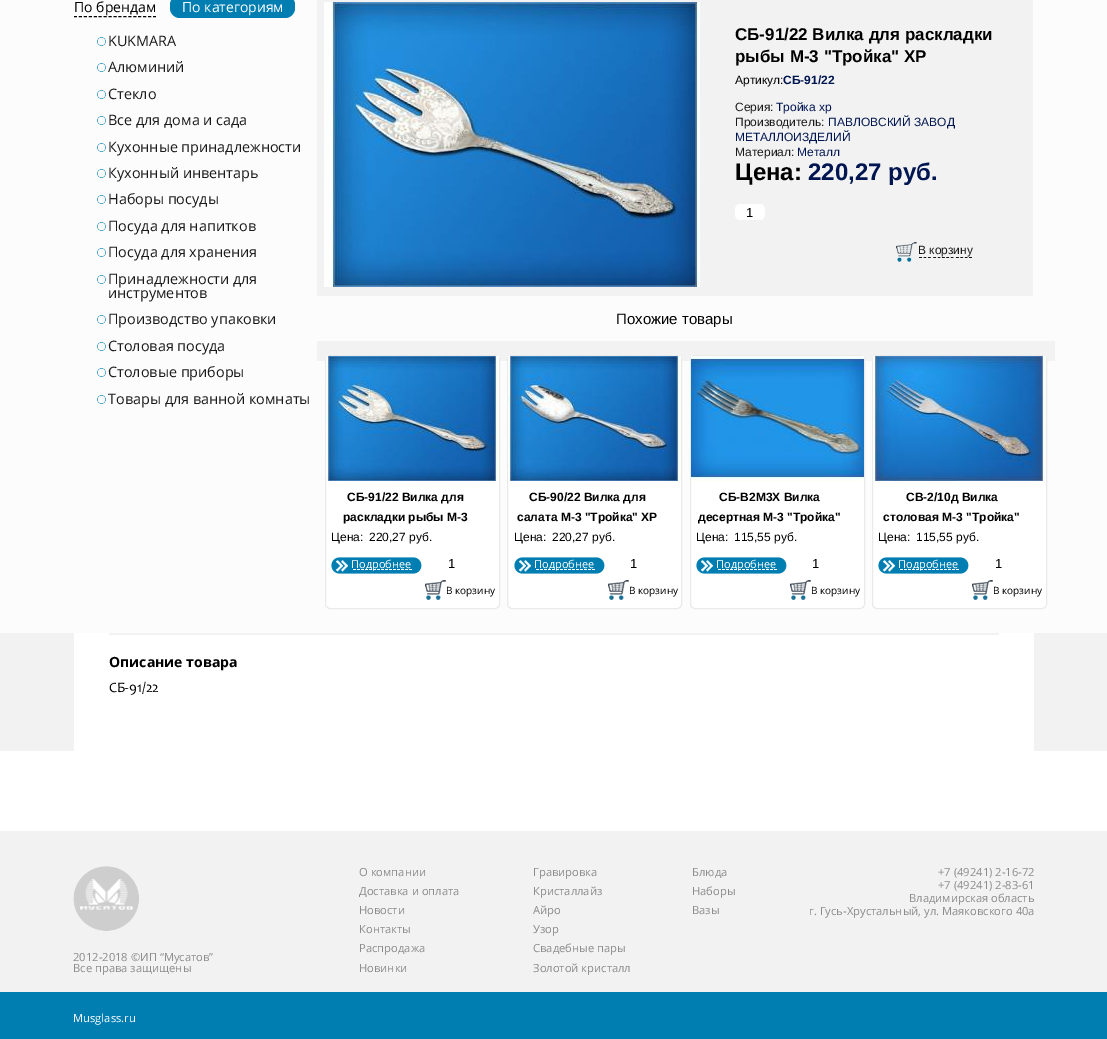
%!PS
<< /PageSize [1107 1039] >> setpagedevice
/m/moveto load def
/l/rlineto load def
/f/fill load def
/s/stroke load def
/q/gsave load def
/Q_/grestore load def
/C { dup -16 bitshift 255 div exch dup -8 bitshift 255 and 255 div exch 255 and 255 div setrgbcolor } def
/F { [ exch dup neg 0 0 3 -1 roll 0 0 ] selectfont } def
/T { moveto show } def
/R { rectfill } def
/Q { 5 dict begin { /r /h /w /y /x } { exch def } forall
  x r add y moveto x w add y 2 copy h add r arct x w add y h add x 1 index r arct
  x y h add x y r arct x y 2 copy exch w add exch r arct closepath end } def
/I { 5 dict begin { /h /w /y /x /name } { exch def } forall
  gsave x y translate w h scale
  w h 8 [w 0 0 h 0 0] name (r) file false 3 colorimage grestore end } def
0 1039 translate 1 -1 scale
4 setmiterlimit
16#FFFFFF C
0 0 1107 1039 R
16#FCFCFC C
0 0 1107 633 R
/OpenSans-Regular 14 F
16#000000 C
(По брендам) 74 12 T
[3 1.94] 0 setdash
74 16.5 m 82 0 l s
16#007EB2 C
170 -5 125 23 10 Q f
16#FFFFFF C
(По категориям) 182 12 T
(1.rgb) 97 37 9 9 I
/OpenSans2-Regular 14.4 F
16#1A1A1A C
(KUKMARA) 108 46 T
(1.rgb) 97 63 9 9 I
(Алюминий) 108 72 T
(1.rgb) 97 90 9 9 I
(Стекло) 108 99 T
(1.rgb) 97 116 9 9 I
(Все для дома и сада) 108 125 T
(1.rgb) 97 143 9 9 I
(Кухонные принадлежности) 108 152 T
(1.rgb) 97 169 9 9 I
(Кухонный инвентарь) 108 178 T
(1.rgb) 97 195 9 9 I
(Наборы посуды) 108 204 T
(1.rgb) 97 222 9 9 I
(Посуда для напитков) 108 231 T
(1.rgb) 97 248 9 9 I
(Посуда для хранения) 108 257 T
(1.rgb) 97 275 9 9 I
(Принадлежности для) 108 284 T
(инструментов) 108 298 T
(1.rgb) 97 315 9 9 I
(Производство упаковки) 108 324 T
(1.rgb) 97 342 9 9 I
(Столовая посуда) 108 351 T
(1.rgb) 97 368 9 9 I
(Столовые приборы) 108 377 T
(1.rgb) 97 395 9 9 I
(Товары для ванной комнаты) 108 404 T
16#F2F2F2 C
317 0 716 296 R
(2.rgb) 324 2 376 285 I
/LiberationSans-Bold 17 F
16#000000 C
(СБ-91/22 Вилка для раскладки) 735 40 T
(рыбы М-3 "Тройка" ХР) 735 62 T
/LiberationSans-Regular 12 F
(Артикул:) 735 84 T
/LiberationSans-Bold 12 F
16#011650 C
(СБ-91/22) 783 84 T
/LiberationSans-Regular 12 F
16#1A1A1A C
(Серия:) 735 111 T
16#011650 C
(Тройка хр) 776 111 T
(ПАВЛОВСКИЙ ЗАВОД) 828 126 T
(МЕТАЛЛОИЗДЕЛИЙ) 735 141 T
16#1A1A1A C
(Производитель:) 735 126 T
(Материал:) 735 156 T
16#011650 C
(Металл) 797 156 T
/LiberationSans-Bold 24 F
16#000000 C
(Цена:) 735 180 T
16#011650 C
(220,27 руб.) 808 180 T
16#FFFFFF C
735 204 30 16 5 Q f
/LiberationSans-Regular 13 F
16#000000 C
(1) 746 217 T
(3.rgb) 896 242 76 20 I
/LiberationSans-Regular 12 F
16#1A1A1A C
(В корзину) 918 254 T
/LiberationSans-Regular 15 F
16#000000 C
(Похожие товары) 616 324 T
16#F2F2F2 C
317 341 738 20 R
16#FFFFFF C
325.5 355.5 174 253 4.5 Q q f Q_
16#EAEAEA C
[] 0 setdash
s
(4.rgb) 326 356 173 125 I
/LiberationSans-Bold 12 F
16#000000 C
(СБ-91/22 Вилка для) 347 501 T
(раскладки рыбы М-3) 343 521 T
/LiberationSans-Regular 12 F
(Цена:) 331 541 T
(220,27 руб.) 369 541 T
(5.rgb) 331 557 91 17 I
/OpenSans2-Regular 11 F
16#FFFFFF C
(Подробнее) 351 568 T
/LiberationSans-Regular 13 F
16#000000 C
(1) 448 568 T
(6.rgb) 425 580 21 20 I
/OpenSans2-Regular 10 F
(В корзину) 446 594 T
16#FFFFFF C
507.5 355.5 174 253 4.5 Q q f Q_
16#EAEAEA C
s
(7.rgb) 508 356 173 125 I
/LiberationSans-Bold 12 F
16#000000 C
(СБ-90/22 Вилка для) 529 501 T
(салата М-3 "Тройка" ХР) 517 521 T
/LiberationSans-Regular 12 F
(Цена:) 514 541 T
(220,27 руб.) 552 541 T
(5.rgb) 514 557 91 17 I
/OpenSans2-Regular 11 F
16#FFFFFF C
(Подробнее) 534 568 T
/LiberationSans-Regular 13 F
16#000000 C
(1) 630 568 T
(6.rgb) 608 580 21 20 I
/OpenSans2-Regular 10 F
(В корзину) 629 594 T
16#FFFFFF C
690.5 355.5 174 253 4.5 Q q f Q_
16#EAEAEA C
s
(8.rgb) 691 356 173 125 I
/LiberationSans-Bold 12 F
16#000000 C
(СБ-В2М3Х Вилка) 719 501 T
(десертная М-3 "Тройка") 698 521 T
/LiberationSans-Regular 12 F
(Цена:) 696 541 T
(115,55 руб.) 734 541 T
(5.rgb) 696 557 91 17 I
/OpenSans2-Regular 11 F
16#FFFFFF C
(Подробнее) 716 568 T
/LiberationSans-Regular 13 F
16#000000 C
(1) 812 568 T
(6.rgb) 790 580 21 20 I
/OpenSans2-Regular 10 F
(В корзину) 811 594 T
16#FFFFFF C
872.5 355.5 174 253 4.5 Q q f Q_
16#EAEAEA C
s
(9.rgb) 873 356 173 125 I
/LiberationSans-Bold 12 F
16#000000 C
(СВ-2/10д Вилка) 906 501 T
(столовая М-3 "Тройка") 883 521 T
/LiberationSans-Regular 12 F
(Цена:) 878 541 T
(115,55 руб.) 916 541 T
(5.rgb) 878 557 91 17 I
/OpenSans2-Regular 11 F
16#FFFFFF C
(Подробнее) 898 568 T
/LiberationSans-Regular 13 F
16#000000 C
(1) 995 568 T
(6.rgb) 972 580 21 20 I
/OpenSans2-Regular 10 F
(В корзину) 993 594 T
16#F2F2F2 C
0 633 1107 118 R
16#FFFFFF C
74 633 960 118 R
16#F2F2F2 C
109 633 890 2 R
/OpenSans-Bold 14 F
16#000000 C
(Описание товара) 109 667 T
/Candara-Regular 14.4 F
(СБ-91/22) 109 692 T
16#F2F2F2 C
0 831 1107 161 R
/OpenSans2-Regular 11.2 F
16#8C8C8C C
(О компании) 359 876 T
(Доставка и оплата) 359 895 T
(Новости) 359 914 T
(Контакты) 359 933 T
(Распродажа) 359 952 T
(Новинки) 359 972 T
(Гравировка) 533 876 T
(Кристаллайз) 533 895 T
(Айро) 533 914 T
(Узор) 533 933 T
(Свадебные пары) 533 952 T
(Золотой кристалл) 533 972 T
(Блюда) 692 876 T
(Наборы) 692 895 T
(Вазы) 692 914 T
(+7 \(49241\) 2-16-72) 938 876 T
(+7 \(49241\) 2-83-61) 938 889 T
(Владимирская область) 909 902 T
(г. Гусь-Хрустальный, ул. Маяковского 40а) 809 915 T
(10.rgb) 73 866 66 65 I
(2012-2018 ©ИП “Мусатов”) 73 961 T
(Все права защищены) 73 972 T
16#007EB2 C
0 992 1107 47 R
16#FFFFFF C
(Musglass.ru) 73 1022 T
showpage
